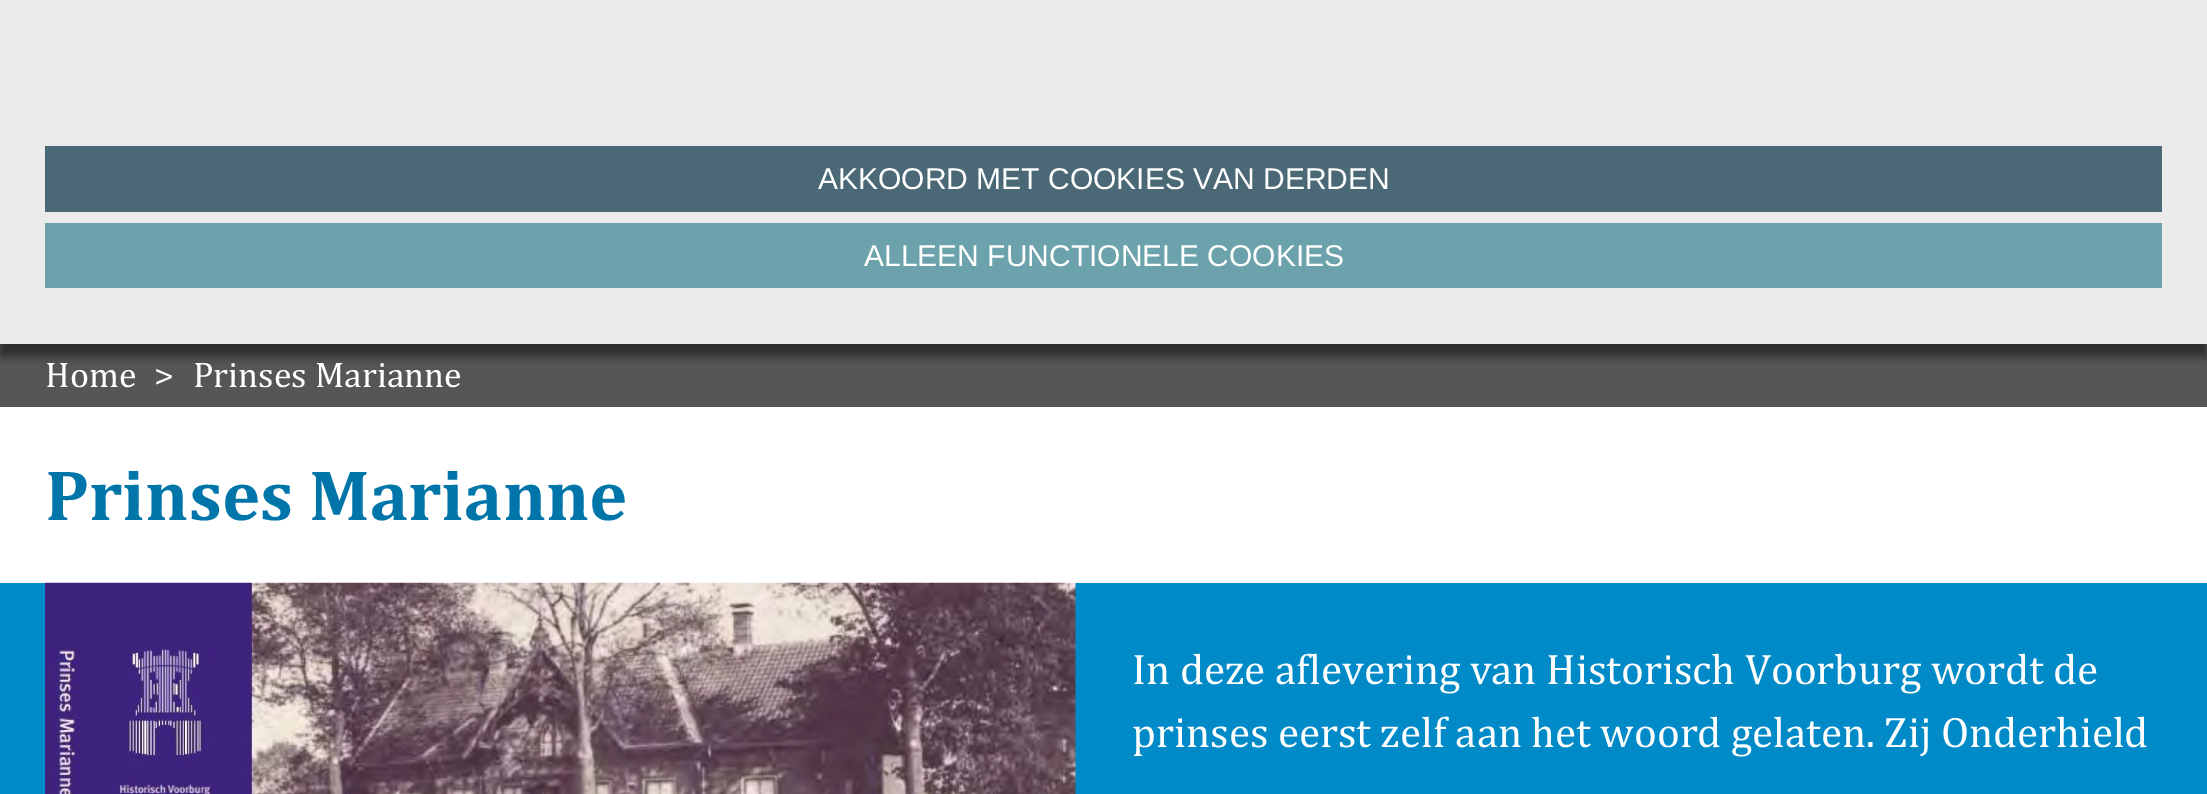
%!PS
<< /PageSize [2207 794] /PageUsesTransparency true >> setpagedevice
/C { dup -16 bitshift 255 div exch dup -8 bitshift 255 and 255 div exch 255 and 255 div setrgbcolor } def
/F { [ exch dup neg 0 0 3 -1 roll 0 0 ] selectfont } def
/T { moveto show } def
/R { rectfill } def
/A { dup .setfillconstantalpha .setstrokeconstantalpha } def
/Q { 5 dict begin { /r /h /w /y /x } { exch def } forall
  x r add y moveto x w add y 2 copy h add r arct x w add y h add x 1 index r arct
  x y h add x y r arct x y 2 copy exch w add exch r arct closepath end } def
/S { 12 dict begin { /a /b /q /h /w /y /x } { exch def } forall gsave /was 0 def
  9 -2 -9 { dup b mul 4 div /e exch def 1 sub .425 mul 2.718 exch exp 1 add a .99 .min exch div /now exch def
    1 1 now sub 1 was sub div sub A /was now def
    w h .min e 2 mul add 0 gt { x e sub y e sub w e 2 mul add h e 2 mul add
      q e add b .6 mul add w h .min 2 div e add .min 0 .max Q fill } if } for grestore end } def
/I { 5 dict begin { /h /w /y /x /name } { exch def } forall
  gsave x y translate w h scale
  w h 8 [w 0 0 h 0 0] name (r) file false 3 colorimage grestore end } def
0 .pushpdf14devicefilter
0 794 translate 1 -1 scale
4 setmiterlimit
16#565656 C
0 0 2207 794 R
16#000000 C
0 11 2207 345 0 5.5 .5 S
16#ECEBEB C
0 0 2207 344 R
16#4A6876 C
45 146 2117 66 R
/LiberationSans-Regular 30 F
16#FFFFFF C
(AKKOORD MET COOKIES VAN DERDEN) 818 189 T
16#6CA2AB C
45 223 2117 65 R
16#FFFFFF C
(ALLEEN FUNCTIONELE COOKIES) 864 266 T
/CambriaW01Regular-Regular 36 F
(Home) 45 387 T
(>) 154 387 T
(Prinses Marianne) 193 387 T
0 407 2207 176 R
/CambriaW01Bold-Bold 72 F
16#0075AA C
(Prinses Marianne) 45 520 T
16#008AC7 C
0 583 2207 211 R
(1.rgb) 45 582 1031 212 I
/CambriaW01Regular-Regular 43.2 F
16#FFFFFF C
(In deze aflevering van Historisch Voorburg wordt de) 1132 684 T
(prinses eerst zelf aan het woord gelaten. Zij Onderhield) 1132 747 T
.poppdf14devicefilter showpage
